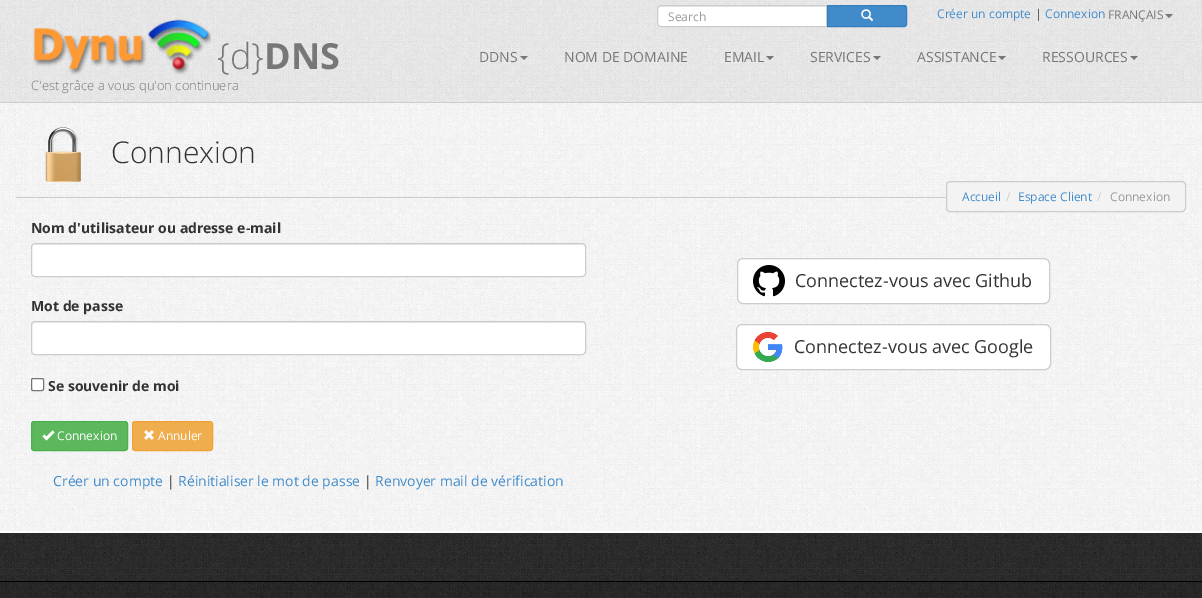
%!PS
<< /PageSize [1202 598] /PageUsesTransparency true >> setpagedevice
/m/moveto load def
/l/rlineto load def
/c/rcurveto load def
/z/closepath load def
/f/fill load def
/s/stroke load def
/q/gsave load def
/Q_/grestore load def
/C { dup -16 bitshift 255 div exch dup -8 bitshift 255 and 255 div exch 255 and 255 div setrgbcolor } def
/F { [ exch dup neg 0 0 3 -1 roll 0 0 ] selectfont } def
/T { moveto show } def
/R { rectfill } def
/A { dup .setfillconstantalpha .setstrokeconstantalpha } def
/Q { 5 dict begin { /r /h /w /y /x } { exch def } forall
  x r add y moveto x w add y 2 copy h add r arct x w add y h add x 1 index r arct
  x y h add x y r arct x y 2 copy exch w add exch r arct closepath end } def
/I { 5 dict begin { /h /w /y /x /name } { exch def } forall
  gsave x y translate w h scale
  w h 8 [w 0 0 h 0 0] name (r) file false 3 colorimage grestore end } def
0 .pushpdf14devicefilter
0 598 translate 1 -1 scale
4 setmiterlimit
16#FFFFFF C
0 0 1202 598 R
(1.rgb) 0 0 1202 102 I
16#CCCCCC C
0 102 1202 1 R
16#FFFFFF C
661 5 m 166 0 l 0 22 l -166 0 l -2 0 -4 -2 -4 -4 c 0 -14 l 0 -2 2 -4 4 -4 c z f
16#ECECEC C
661 7 m 165 0 l 0 -1 l -166 0 l -2 0 -2 2 -2 4 c 0 -2 1 -3 3 -3 c z f
16#CCCCCC C
661 5.5 m 165.5 0 l 0 21 l -165.5 0 l -2 0 -3.5 -1.5 -3.5 -3.5 c 0 -14 l 0 -2 1.5 -3.5 3.5 -3.5 c z s
/OpenSans-Regular 12 F
16#999999 C
(Search) 668 21 T
16#428BCA C
827.5 5.5 m 76.5 0 l 1.5 0 2.5 1 2.5 2.5 c 0 16 l 0 1.5 -1 2.5 -2.5 2.5 c -76.5 0 l z q f Q_
16#357EBD C
s
(2.rgb) 861 9 13 13 I
16#428BCA C
(Créer un compte) 937 18 T
16#333333 C
(|) 1035 18 T
16#428BCA C
(Connexion) 1045 18 T
16#777777 C
(FRANÇAIS) 1108 19 T
1165 14 m 8 0 l -4 4 l z f
(3.rgb) 33 19 178 56 I
/OpenSans-Light 36 F
({d}) 217 69 T
/OpenSans-Bold 36 F
(DNS) 264 69 T
/OpenSans-Light 13 F
(C'est grâce a vous qu'on continuera) 31 90 T
/OpenSans-Regular 14 F
(DDNS) 479 62 T
520 56 m 8 0 l -4 4 l z f
(NOM DE DOMAINE) 564 62 T
(EMAIL) 724 62 T
766 56 m 8 0 l -4 4 l z f
(SERVICES) 810 62 T
873 56 m 8 0 l -4 4 l z f
(ASSISTANCE) 917 62 T
998 56 m 8 0 l -4 4 l z f
(RESSOURCES) 1042 62 T
1130 56 m 8 0 l -4 4 l z f
(4.rgb) 0 103 1202 428 I
16#CCCCCC C
16 197 930 1 R
(5.rgb) 45 127 36 55 I
/OpenSans-Light 30 F
16#333333 C
(Connexion) 111 163 T
16#F3F3F3 C
946.5 181.5 239 30 3.5 Q q f Q_
16#CCCCCC C
s
/OpenSans-Regular 12 F
16#428BCA C
(Accueil) 962 201 T
16#CCCCCC C
(/) 1006 201 T
16#428BCA C
(Espace Client) 1018 201 T
16#CCCCCC C
(/) 1097 201 T
16#999999 C
(Connexion) 1110 201 T
/OpenSans-Bold 14 F
16#333333 C
(Nom d'utilisateur ou adresse e-mail) 31 233 T
16#FFFFFF C
31 243 555 34 4 Q f
16#ECECEC C
35 245 m 547 0 l 2 0 3 1 3 3 c 0 -2 -1 -4 -3 -4 c -547 0 l -2 1 l -1 1 l 0 2 l 0 -2 1 -3 3 -3 c z f
16#CCCCCC C
31.5 243.5 554 33 3.5 Q s
16#333333 C
(Mot de passe) 31 311 T
16#FFFFFF C
31 321 555 34 4 Q f
16#ECECEC C
35 323 m 547 0 l 2 0 3 1 3 3 c 0 -2 -1 -4 -3 -4 c -547 0 l -2 1 l -1 1 l 0 2 l 0 -2 1 -3 3 -3 c z f
16#CCCCCC C
31.5 321.5 554 33 3.5 Q s
16#FFFFFF C
31.5 378.5 12 12 1.5 Q q f Q_
16#767676 C
s
16#333333 C
(Se souvenir de moi) 48 391 T
16#5CB85C C
31.5 421.5 96 29 2.5 Q q f Q_
16#4CAE4C C
s
(6.rgb) 42 430 13 11 I
/OpenSans-Regular 12 F
16#FFFFFF C
(Connexion) 57 440 T
16#F0AD4E C
132.5 421.5 80 29 2.5 Q q f Q_
16#EEA236 C
s
(7.rgb) 144 430 10 10 I
16#FFFFFF C
(Annuler) 158 440 T
737 258 313 46 6 Q f
(8.rgb) 753 265 32 32 I
16#CCCCCC C
737.5 258.5 312 45 5.5 Q s
/OpenSans-Regular 18 F
16#333333 C
(Connectez-vous avec Github) 795 287 T
16#FFFFFF C
736 324 315 46 6 Q f
(9.rgb) 753 332 30 30 I
16#CCCCCC C
736.5 324.5 314 45 5.5 Q s
16#333333 C
(Connectez-vous avec Google) 794 353 T
/OpenSans-Regular 14 F
16#428BCA C
(Créer un compte) 53 486 T
16#333333 C
(|) 167 486 T
16#428BCA C
(Réinitialiser le mot de passe) 178 486 T
16#333333 C
(|) 364 486 T
16#428BCA C
(Renvoyer mail de vérification) 375 486 T
(10.rgb) 0 533 1202 65 I
0.1 A
16#000000 C
0 582 1202 16 R
1 A
0 581 1202 1 R
.poppdf14devicefilter showpage
